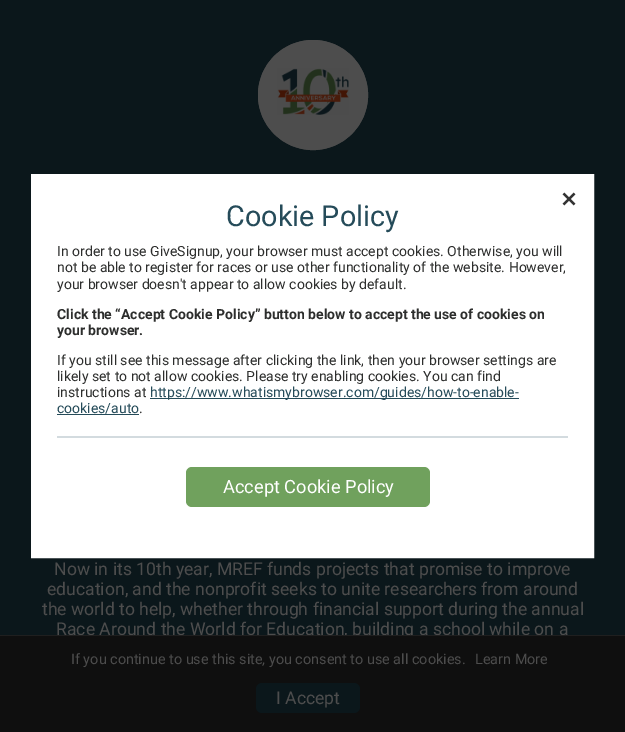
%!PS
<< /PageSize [625 732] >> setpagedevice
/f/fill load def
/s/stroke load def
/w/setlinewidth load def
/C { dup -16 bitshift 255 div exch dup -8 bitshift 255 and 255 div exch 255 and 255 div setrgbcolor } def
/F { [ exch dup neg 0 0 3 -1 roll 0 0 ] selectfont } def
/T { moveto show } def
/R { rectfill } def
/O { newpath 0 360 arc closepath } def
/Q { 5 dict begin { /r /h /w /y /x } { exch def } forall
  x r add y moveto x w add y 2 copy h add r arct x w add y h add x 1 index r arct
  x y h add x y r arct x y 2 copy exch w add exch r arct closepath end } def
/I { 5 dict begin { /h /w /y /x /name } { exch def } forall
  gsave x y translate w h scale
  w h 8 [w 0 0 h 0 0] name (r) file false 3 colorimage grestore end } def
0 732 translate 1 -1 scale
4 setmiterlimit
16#0B171B C
0 0 625 732 R
16#FFFFFF C
31.5 174.5 562 383 rectstroke
32 175 561 382 R
(1.rgb) 562 192 14 14 I
/Roboto-Regular 28.75 F
16#254B59 C
(Cookie Policy) 226 226 T
/Roboto-Regular 14 F
16#2D2E2D C
(In order to use GiveSignup, your browser must accept cookies. Otherwise, you will) 57 256 T
(not be able to register for races or use other functionality of the website. However,) 57 272 T
(your browser doesn't appear to allow cookies by default.) 57 289 T
/Roboto-Bold 14 F
(Click the “Accept Cookie Policy” button below to accept the use of cookies on) 57 319 T
(your browser.) 57 335 T
/Roboto-Regular 14 F
(If you still see this message after clicking the link, then your browser settings are) 57 365 T
(likely set to not allow cookies. Please try enabling cookies. You can find) 57 381 T
(instructions at) 57 397 T
16#254B59 C
150 398 369 1 R
(https://www.whatismybrowser.com/guides/how-to-enable-) 150 397 T
(cookies/auto) 57 413 T
57 414 82 1 R
16#2D2E2D C
(.) 139 413 T
16#D3DBDF C
57 436 511 2 R
16#70A15D C
186 467 244 40 6 Q f
/Roboto-Regular 18.25 F
16#FFFFFF C
(Accept Cookie Policy) 223 493 T
16#4D4D4D C
313 95 55 O f
(2.rgb) 277 68 72 47 I
4 w
313 95 53 O s
/Roboto-Regular 17.6 F
(Now in its 10th year, MREF funds projects that promise to improve) 54 575 T
(education, and the nonprofit seeks to unite researchers from around) 47 595 T
(the world to help, whether through financial support during the annual) 42 615 T
(Race Around the World for Education, building a school while on a) 56 635 T
16#0F0F0F C
0 636 625 96 R
16#1F1F1F C
0 635 625 1 R
/Roboto-Regular 14.4 F
16#4D4D4D C
(If you continue to use this site, you consent to use all cookies.) 71 664 T
(Learn More) 475 664 T
16#0B171B C
256 683 104 30 6 Q f
/Roboto-Regular 17.6 F
16#4D4D4D C
(I Accept) 276 704 T
showpage
